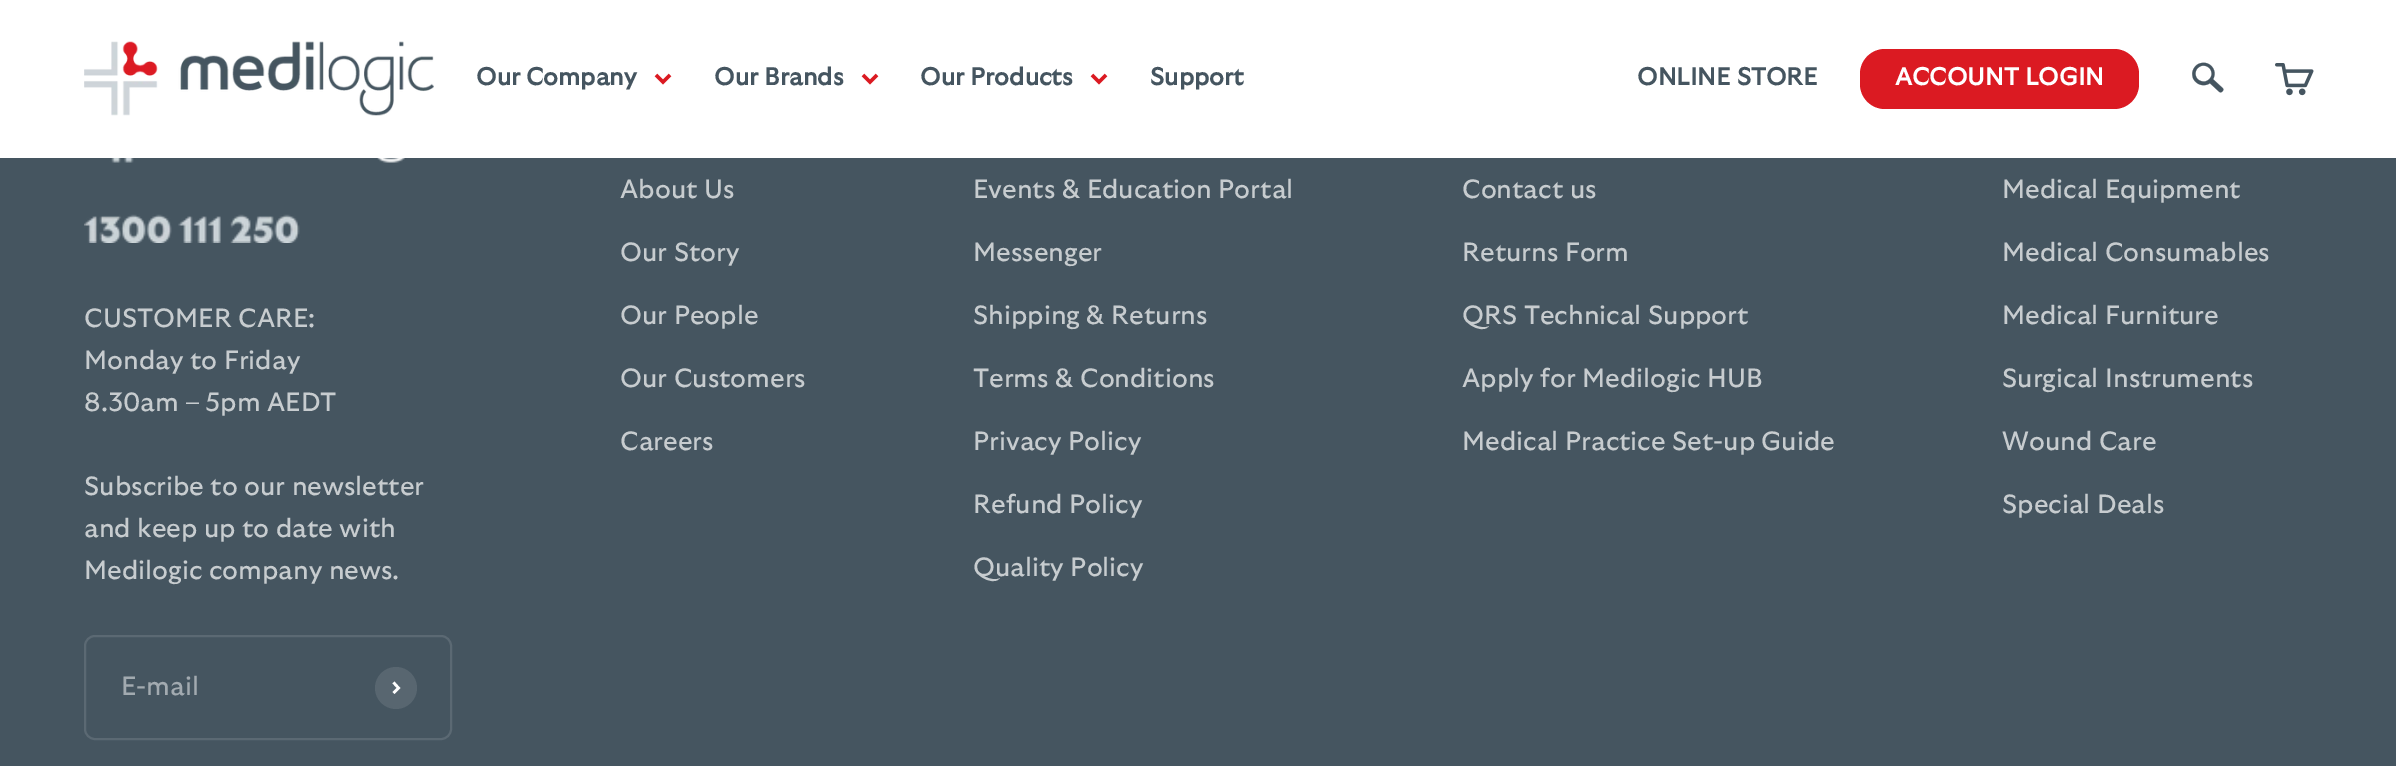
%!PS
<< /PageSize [2396 766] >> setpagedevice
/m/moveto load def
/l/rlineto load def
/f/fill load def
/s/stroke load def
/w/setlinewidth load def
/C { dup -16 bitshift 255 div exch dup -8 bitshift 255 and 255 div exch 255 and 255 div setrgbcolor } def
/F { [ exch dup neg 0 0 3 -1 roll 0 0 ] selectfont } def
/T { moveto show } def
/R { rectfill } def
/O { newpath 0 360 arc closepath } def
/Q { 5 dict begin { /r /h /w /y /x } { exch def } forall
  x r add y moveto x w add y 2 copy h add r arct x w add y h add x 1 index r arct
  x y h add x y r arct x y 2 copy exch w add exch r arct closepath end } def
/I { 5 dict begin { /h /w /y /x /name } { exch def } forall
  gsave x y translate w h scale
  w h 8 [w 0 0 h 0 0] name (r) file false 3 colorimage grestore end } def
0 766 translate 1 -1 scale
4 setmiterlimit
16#455560 C
0 0 2396 766 R
16#FFFFFF C
0 0 2396 158 R
(1.rgb) 84 41 350 75 I
/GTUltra-Bold 24.5 F
16#455560 C
(Our Company) 476 85 T
16#DB1A22 C
3.5 w
656 75 m 7 7 l 7 -7 l s
16#455560 C
(Our Brands) 714 85 T
16#DB1A22 C
863 75 m 7 7 l 7 -7 l s
16#455560 C
(Our Products) 920 85 T
16#DB1A22 C
1092 75 m 7 7 l 7 -7 l s
16#455560 C
(Support) 1150 85 T
(ONLINE STORE) 1637 85 T
16#DB1A22 C
1860 49 279 60 25 Q f
16#FFFFFF C
(ACCOUNT LOGIN) 1895 85 T
(2.rgb) 2192 62 32 31 I
(3.rgb) 2275 63 39 33 I
(4.rgb) 84 158 321 85 I
/GTUltra-Regular 26.25 F
16#C7CCCF C
(CUSTOMER CARE:) 84 327 T
(Monday to Friday) 84 369 T
(8.30am – 5pm AEDT) 84 411 T
(Subscribe to our newsletter) 84 495 T
(and keep up to date with) 84 537 T
(Medilogic company news.) 84 579 T
16#5B6973 C
2 w
85 636 366 103 10 Q s
16#A2AAB0 C
(E-mail) 121 695 T
16#586670 C
396 688 21 O f
16#FFFFFF C
2.6 w
393.5 693 m 5 -5 l -5 -5.5 l s
16#C7CCCF C
(About Us) 620 198 T
(Our Story) 620 261 T
(Our People) 620 324 T
(Our Customers) 620 387 T
(Careers) 620 450 T
(Events & Education Portal) 973 198 T
(Messenger) 973 261 T
(Shipping & Returns) 973 324 T
(Terms & Conditions) 973 387 T
(Privacy Policy) 973 450 T
(Refund Policy) 973 513 T
(Quality Policy) 973 576 T
(Contact us) 1462 198 T
(Returns Form) 1462 261 T
(QRS Technical Support) 1462 324 T
(Apply for Medilogic HUB) 1462 387 T
(Medical Practice Set-up Guide) 1462 450 T
(Medical Equipment) 2002 198 T
(Medical Consumables) 2002 261 T
(Medical Furniture) 2002 324 T
(Surgical Instruments) 2002 387 T
(Wound Care) 2002 450 T
(Special Deals) 2002 513 T
showpage
